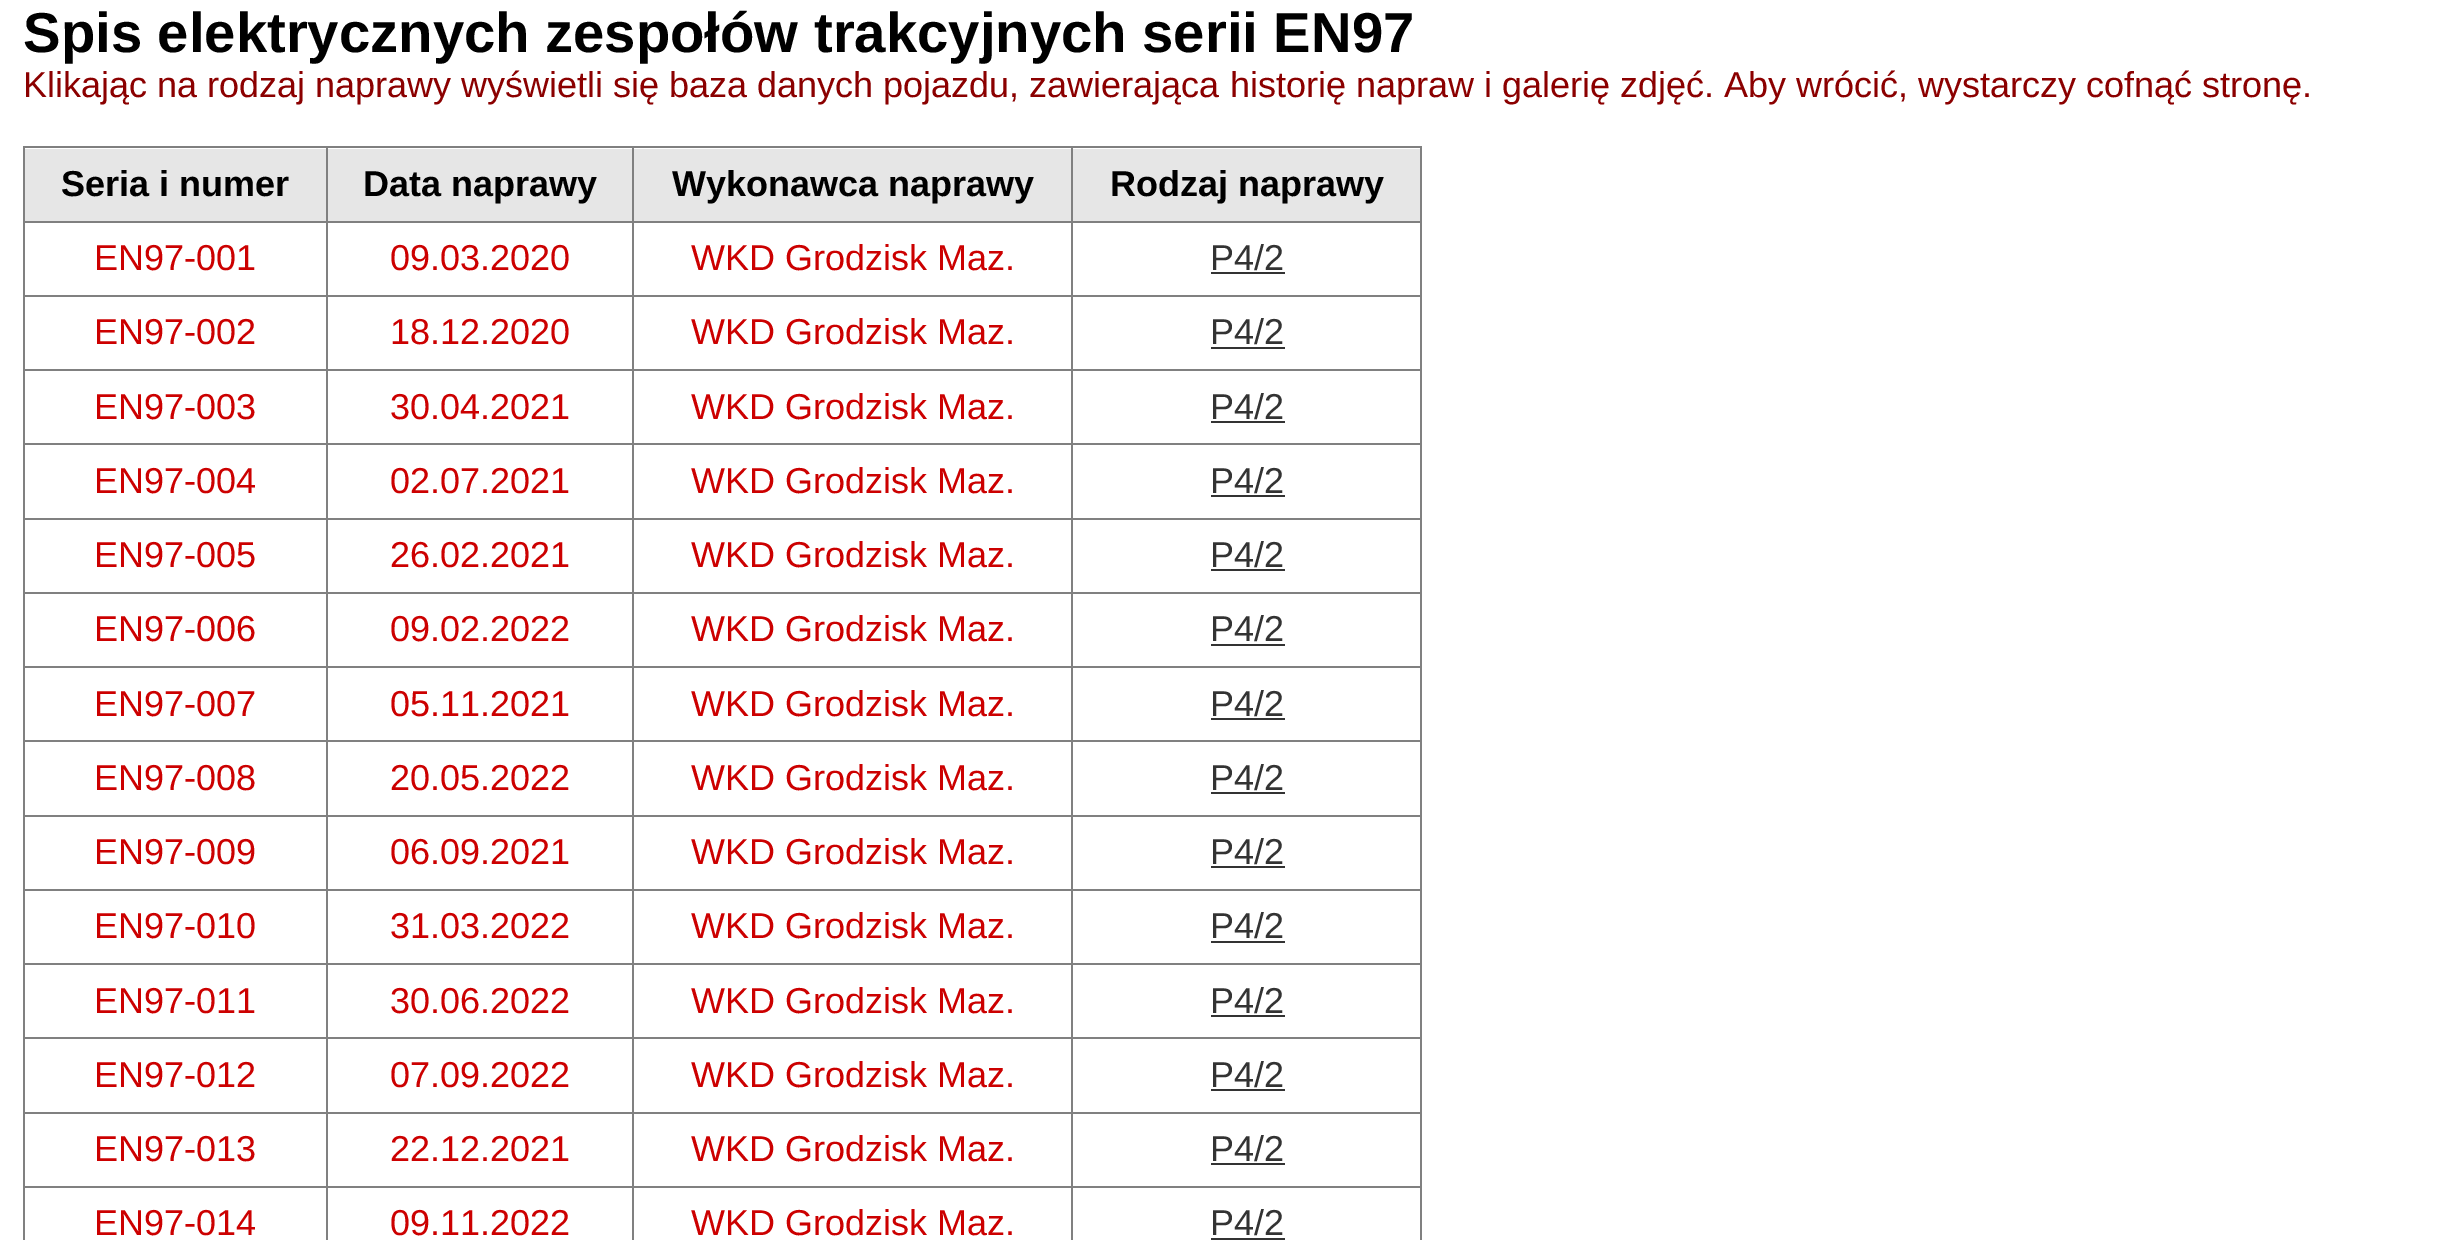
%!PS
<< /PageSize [2452 1240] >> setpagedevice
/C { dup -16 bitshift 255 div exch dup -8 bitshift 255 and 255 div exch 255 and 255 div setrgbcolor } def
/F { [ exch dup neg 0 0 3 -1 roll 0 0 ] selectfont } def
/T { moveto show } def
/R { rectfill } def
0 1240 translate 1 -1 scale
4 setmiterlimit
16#FFFFFF C
0 0 2452 1240 R
/LiberationSans-Bold 56.25 F
16#000000 C
(Spis elektrycznych zespołów trakcyjnych serii EN97) 23 52 T
/LiberationSans-Regular 36 F
16#8B0000 C
(Klikając na rodzaj naprawy wyświetli się baza danych pojazdu, zawierająca historię napraw i galerię zdjęć. Aby wrócić, wystarczy cofnąć stronę.) 23 97 T
16#808080 C
23 146 1399 2 R
1420 146 2 1094 R
23 146 2 1094 R
16#E6E6E6 C
25 149 1395 72 R
/LiberationSans-Bold 36 F
16#000000 C
(Seria i numer) 61 196 T
16#808080 C
1071 221 351 2 R
1071 295 351 2 R
1071 369 351 2 R
1071 443 351 2 R
1071 518 351 2 R
1071 592 351 2 R
1071 666 351 2 R
1071 740 351 2 R
1071 815 351 2 R
1071 889 351 2 R
1071 963 351 2 R
1071 1037 351 2 R
1071 1112 351 2 R
1071 1186 351 2 R
1071 1186 2 54 R
632 1186 441 2 R
1071 1112 2 76 R
632 1112 441 2 R
1071 1037 2 77 R
632 1037 441 2 R
1071 963 2 77 R
632 963 441 2 R
1071 889 2 76 R
632 889 441 2 R
1071 815 2 76 R
632 815 441 2 R
1071 740 2 77 R
632 740 441 2 R
1071 666 2 77 R
632 666 441 2 R
1071 592 2 76 R
632 592 441 2 R
1071 518 2 76 R
632 518 441 2 R
1071 443 2 77 R
632 443 441 2 R
1071 369 2 77 R
632 369 441 2 R
1071 295 2 76 R
632 295 441 2 R
1071 221 2 76 R
632 221 441 2 R
632 1186 2 54 R
326 1186 309 2 R
632 1112 2 76 R
326 1112 309 2 R
632 1037 2 77 R
326 1037 309 2 R
632 963 2 77 R
326 963 309 2 R
632 889 2 76 R
326 889 309 2 R
632 815 2 76 R
326 815 309 2 R
632 740 2 77 R
326 740 309 2 R
632 666 2 77 R
326 666 309 2 R
632 592 2 76 R
326 592 309 2 R
632 518 2 76 R
326 518 309 2 R
632 443 2 77 R
326 443 309 2 R
632 369 2 77 R
326 369 309 2 R
632 295 2 76 R
326 295 309 2 R
632 221 2 76 R
326 221 309 2 R
326 1186 2 54 R
23 1186 306 2 R
326 1112 2 76 R
23 1112 306 2 R
326 1037 2 77 R
23 1037 306 2 R
326 963 2 77 R
23 963 306 2 R
326 889 2 76 R
23 889 306 2 R
326 815 2 76 R
23 815 306 2 R
326 740 2 77 R
23 740 306 2 R
326 666 2 77 R
23 666 306 2 R
326 592 2 76 R
23 592 306 2 R
326 518 2 76 R
23 518 306 2 R
326 443 2 77 R
23 443 306 2 R
326 369 2 77 R
23 369 306 2 R
326 295 2 76 R
23 295 306 2 R
326 221 2 76 R
23 221 306 2 R
326 146 2 77 R
16#000000 C
(Data naprawy) 363 196 T
16#808080 C
632 146 2 77 R
16#000000 C
(Wykonawca naprawy) 672 196 T
16#808080 C
1071 146 2 77 R
16#000000 C
(Rodzaj naprawy) 1110 196 T
/LiberationSans-Regular 36 F
16#CC0000 C
(EN97-001) 94 270 T
(09.03.2020) 390 270 T
(WKD Grodzisk Maz.) 691 270 T
16#333333 C
(P4/2) 1210 270 T
1211 272 74 2 R
16#CC0000 C
(EN97-002) 94 344 T
(18.12.2020) 390 344 T
(WKD Grodzisk Maz.) 691 344 T
16#333333 C
(P4/2) 1210 344 T
1211 347 74 2 R
16#CC0000 C
(EN97-003) 94 419 T
(30.04.2021) 390 419 T
(WKD Grodzisk Maz.) 691 419 T
16#333333 C
(P4/2) 1210 419 T
1211 421 74 2 R
16#CC0000 C
(EN97-004) 94 493 T
(02.07.2021) 390 493 T
(WKD Grodzisk Maz.) 691 493 T
16#333333 C
(P4/2) 1210 493 T
1211 495 74 2 R
16#CC0000 C
(EN97-005) 94 567 T
(26.02.2021) 390 567 T
(WKD Grodzisk Maz.) 691 567 T
16#333333 C
(P4/2) 1210 567 T
1211 569 74 2 R
16#CC0000 C
(EN97-006) 94 641 T
(09.02.2022) 390 641 T
(WKD Grodzisk Maz.) 691 641 T
16#333333 C
(P4/2) 1210 641 T
1211 644 74 2 R
16#CC0000 C
(EN97-007) 94 716 T
(05.11.2021) 390 716 T
(WKD Grodzisk Maz.) 691 716 T
16#333333 C
(P4/2) 1210 716 T
1211 718 74 2 R
16#CC0000 C
(EN97-008) 94 790 T
(20.05.2022) 390 790 T
(WKD Grodzisk Maz.) 691 790 T
16#333333 C
(P4/2) 1210 790 T
1211 792 74 2 R
16#CC0000 C
(EN97-009) 94 864 T
(06.09.2021) 390 864 T
(WKD Grodzisk Maz.) 691 864 T
16#333333 C
(P4/2) 1210 864 T
1211 866 74 2 R
16#CC0000 C
(EN97-010) 94 938 T
(31.03.2022) 390 938 T
(WKD Grodzisk Maz.) 691 938 T
16#333333 C
(P4/2) 1210 938 T
1211 941 74 2 R
16#CC0000 C
(EN97-011) 94 1013 T
(30.06.2022) 390 1013 T
(WKD Grodzisk Maz.) 691 1013 T
16#333333 C
(P4/2) 1210 1013 T
1211 1015 74 2 R
16#CC0000 C
(EN97-012) 94 1087 T
(07.09.2022) 390 1087 T
(WKD Grodzisk Maz.) 691 1087 T
16#333333 C
(P4/2) 1210 1087 T
1211 1089 74 2 R
16#CC0000 C
(EN97-013) 94 1161 T
(22.12.2021) 390 1161 T
(WKD Grodzisk Maz.) 691 1161 T
16#333333 C
(P4/2) 1210 1161 T
1211 1163 74 2 R
16#CC0000 C
(EN97-014) 94 1235 T
(09.11.2022) 390 1235 T
(WKD Grodzisk Maz.) 691 1235 T
16#333333 C
(P4/2) 1210 1235 T
1211 1238 74 2 R
showpage
